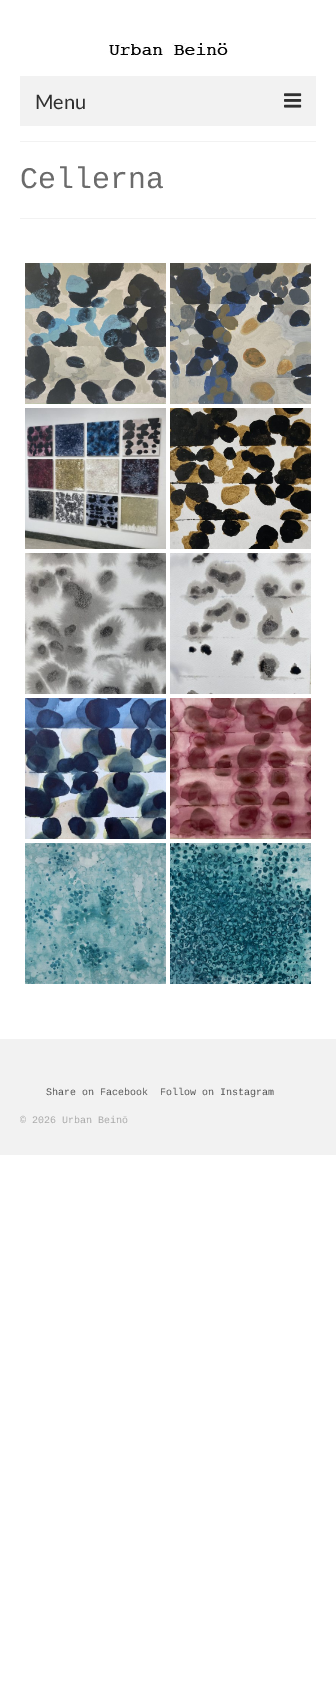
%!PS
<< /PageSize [336 1683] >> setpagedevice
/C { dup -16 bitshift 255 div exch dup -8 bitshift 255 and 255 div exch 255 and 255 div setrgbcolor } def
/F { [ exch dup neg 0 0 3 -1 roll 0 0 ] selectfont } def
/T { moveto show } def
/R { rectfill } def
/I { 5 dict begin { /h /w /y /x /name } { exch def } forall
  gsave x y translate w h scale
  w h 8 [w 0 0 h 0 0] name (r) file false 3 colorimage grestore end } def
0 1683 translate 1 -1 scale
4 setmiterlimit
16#FFFFFF C
0 0 336 1683 R
(1.rgb) 109 43 119 12 I
16#F2F2F2 C
20 76 296 50 R
/Lato-Regular 20 F
16#303030 C
(Menu) 35 109 T
(2.rgb) 284 93 18 15 I
16#F2F2F2 C
20 141 296 1 R
20 218 296 1 R
/LiberationMono-Regular 30 F
16#6B6B6B C
(Cellerna) 20 188 T
(3.rgb) 25 263 141 141 I
(4.rgb) 170 263 141 141 I
(5.rgb) 25 408 141 141 I
(6.rgb) 170 408 141 141 I
(7.rgb) 25 553 141 141 I
(8.rgb) 170 553 141 141 I
(9.rgb) 25 698 141 141 I
(10.rgb) 170 698 141 141 I
(11.rgb) 25 843 141 141 I
(12.rgb) 170 843 141 141 I
16#F2F2F2 C
0 1039 336 116 R
/LiberationMono-Regular 10 F
16#555555 C
(Share on Facebook) 46 1095 T
(Follow on Instagram) 160 1095 T
16#AAAAAA C
(© 2026 Urban Beinö) 20 1123 T
showpage
